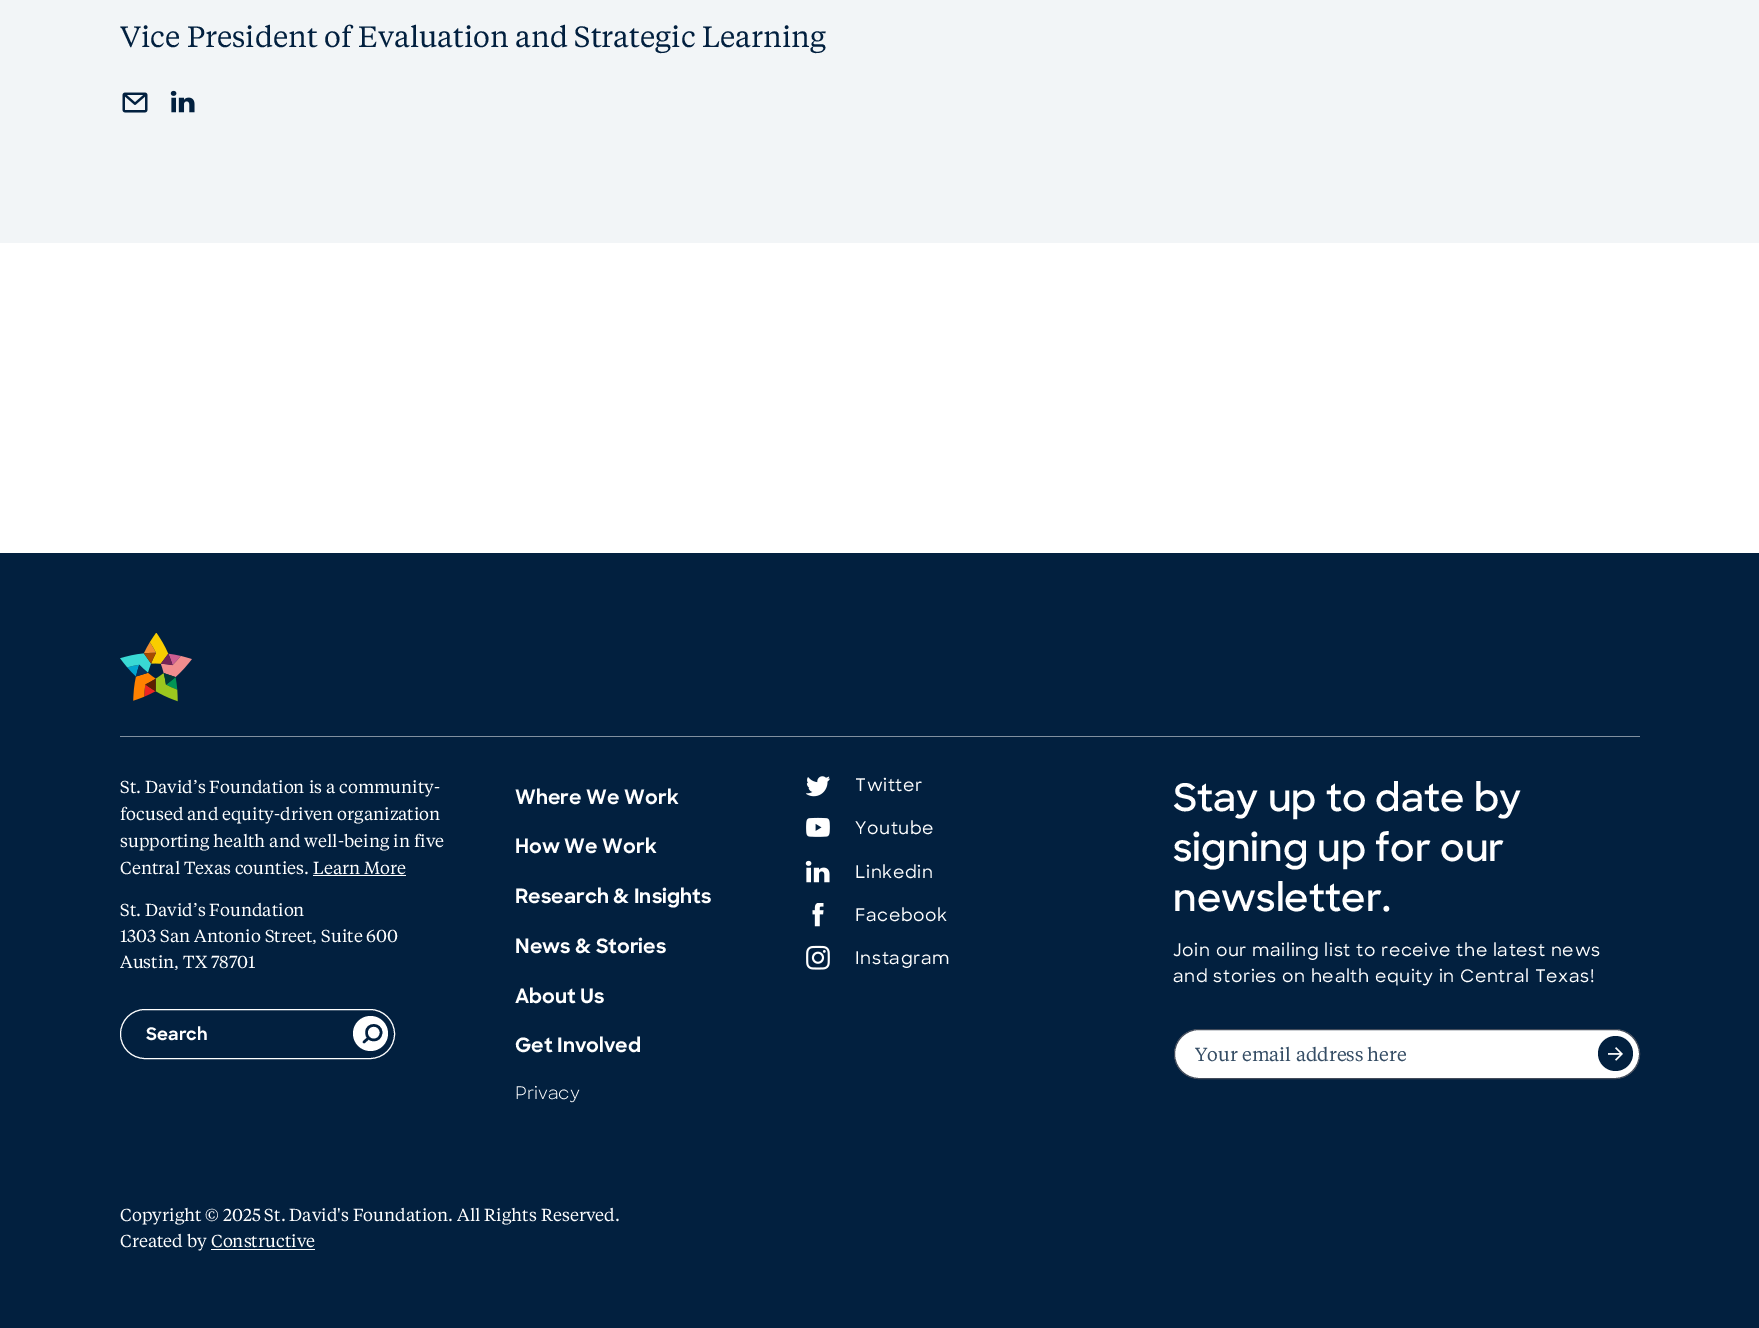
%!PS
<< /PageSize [1759 1328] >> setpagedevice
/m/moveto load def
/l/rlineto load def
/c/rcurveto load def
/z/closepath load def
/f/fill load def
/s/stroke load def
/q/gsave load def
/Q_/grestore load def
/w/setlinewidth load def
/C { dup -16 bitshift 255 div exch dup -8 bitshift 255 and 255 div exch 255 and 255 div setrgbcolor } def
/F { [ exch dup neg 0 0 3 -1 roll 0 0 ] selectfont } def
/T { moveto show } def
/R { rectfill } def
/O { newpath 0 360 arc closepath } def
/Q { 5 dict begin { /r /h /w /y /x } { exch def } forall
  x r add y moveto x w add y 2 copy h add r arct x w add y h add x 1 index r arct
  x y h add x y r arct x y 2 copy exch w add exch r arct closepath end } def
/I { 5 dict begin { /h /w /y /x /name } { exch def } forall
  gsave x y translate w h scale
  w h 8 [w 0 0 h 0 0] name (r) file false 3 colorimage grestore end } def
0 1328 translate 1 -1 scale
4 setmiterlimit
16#FFFFFF C
0 0 1759 1328 R
16#F2F5F7 C
0 0 1759 243 R
/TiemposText-Regular 29.25 F
16#02203F C
(Vice President of Evaluation and Strategic Learning) 120 47 T
(1.rgb) 122 92 26 21 I
(2.rgb) 170 90 25 23 I
0 553 1759 775 R
(3.rgb) 120 633 72 69 I
16#81909F C
120 736 1520 1 R
/TiemposText-Regular 17.3 F
16#FFFFFF C
(St. David’s Foundation is a community-) 120 793 T
(focused and equity-driven organization) 120 820 T
(supporting health and well-being in five) 120 847 T
(Central Texas counties. Learn More) 120 874 T
313 875 93 1 R
(St. David’s Foundation) 120 916 T
(1303 San Antonio Street, Suite 600) 120 942 T
(Austin, TX 78701) 120 968 T
120.5 1009.5 274 49 24.5 Q s
/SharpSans-Bold 17.3 F
(Search) 146 1040 T
370.5 1033.5 17.5 O f
16#02203F C
2.5 w
1 setlinecap
1 setlinejoin
366.5 1032.5 m 0 10 14.5 10 14.5 0 c 0 -9.5 -14.5 -9.5 -14.5 0 c z 364 1042 m 4.5 -4 l s
/SharpSans-Bold 19.75 F
16#FFFFFF C
(Where We Work) 515 804 T
(How We Work) 515 853 T
(Research & Insights) 515 903 T
(News & Stories) 515 953 T
(About Us) 515 1003 T
(Get Involved) 515 1052 T
/SharpSans-Regular 17.3 F
(Privacy) 515 1099 T
(4.rgb) 806 776 24 21 I
/SharpSans-Medium 17.3 F
855 791 m .65 0 (Twitter) ashow
(5.rgb) 806 817 24 20 I
855 834 m .65 0 (Youtube) ashow
(6.rgb) 805 860 25 23 I
855 878 m .65 0 (Linkedin) ashow
(7.rgb) 812 903 12 24 I
855 921 m .65 0 (Facebook) ashow
(8.rgb) 806 945 24 25 I
855 964 m .65 0 (Instagram) ashow
/SharpSans-SemiBold 38 F
(Stay up to date by) 1173 811 T
(signing up for our) 1173 861 T
(newsletter.) 1173 911 T
/SharpSans-Medium 17.3 F
1173 956 m .65 0 (Join our mailing list to receive the latest news) ashow
1173 982 m .65 0 (and stories on health equity in Central Texas!) ashow
1174.5 1029.5 465 49 24.5 Q q f Q_
16#424B5A C
1 w
0 setlinecap
0 setlinejoin
s
/TiemposText-Regular 18.75 F
16#354D65 C
(Your email address here) 1195 1061 T
16#02203F C
1615.5 1053.5 17.5 O f
(9.rgb) 1608 1047 15 14 I
/TiemposText-Regular 17.3 F
16#FFFFFF C
(Copyright © 2025 St. David's Foundation. All Rights Reserved.) 120 1221 T
(Created by Constructive) 120 1247 T
211 1249 104 1 R
showpage
